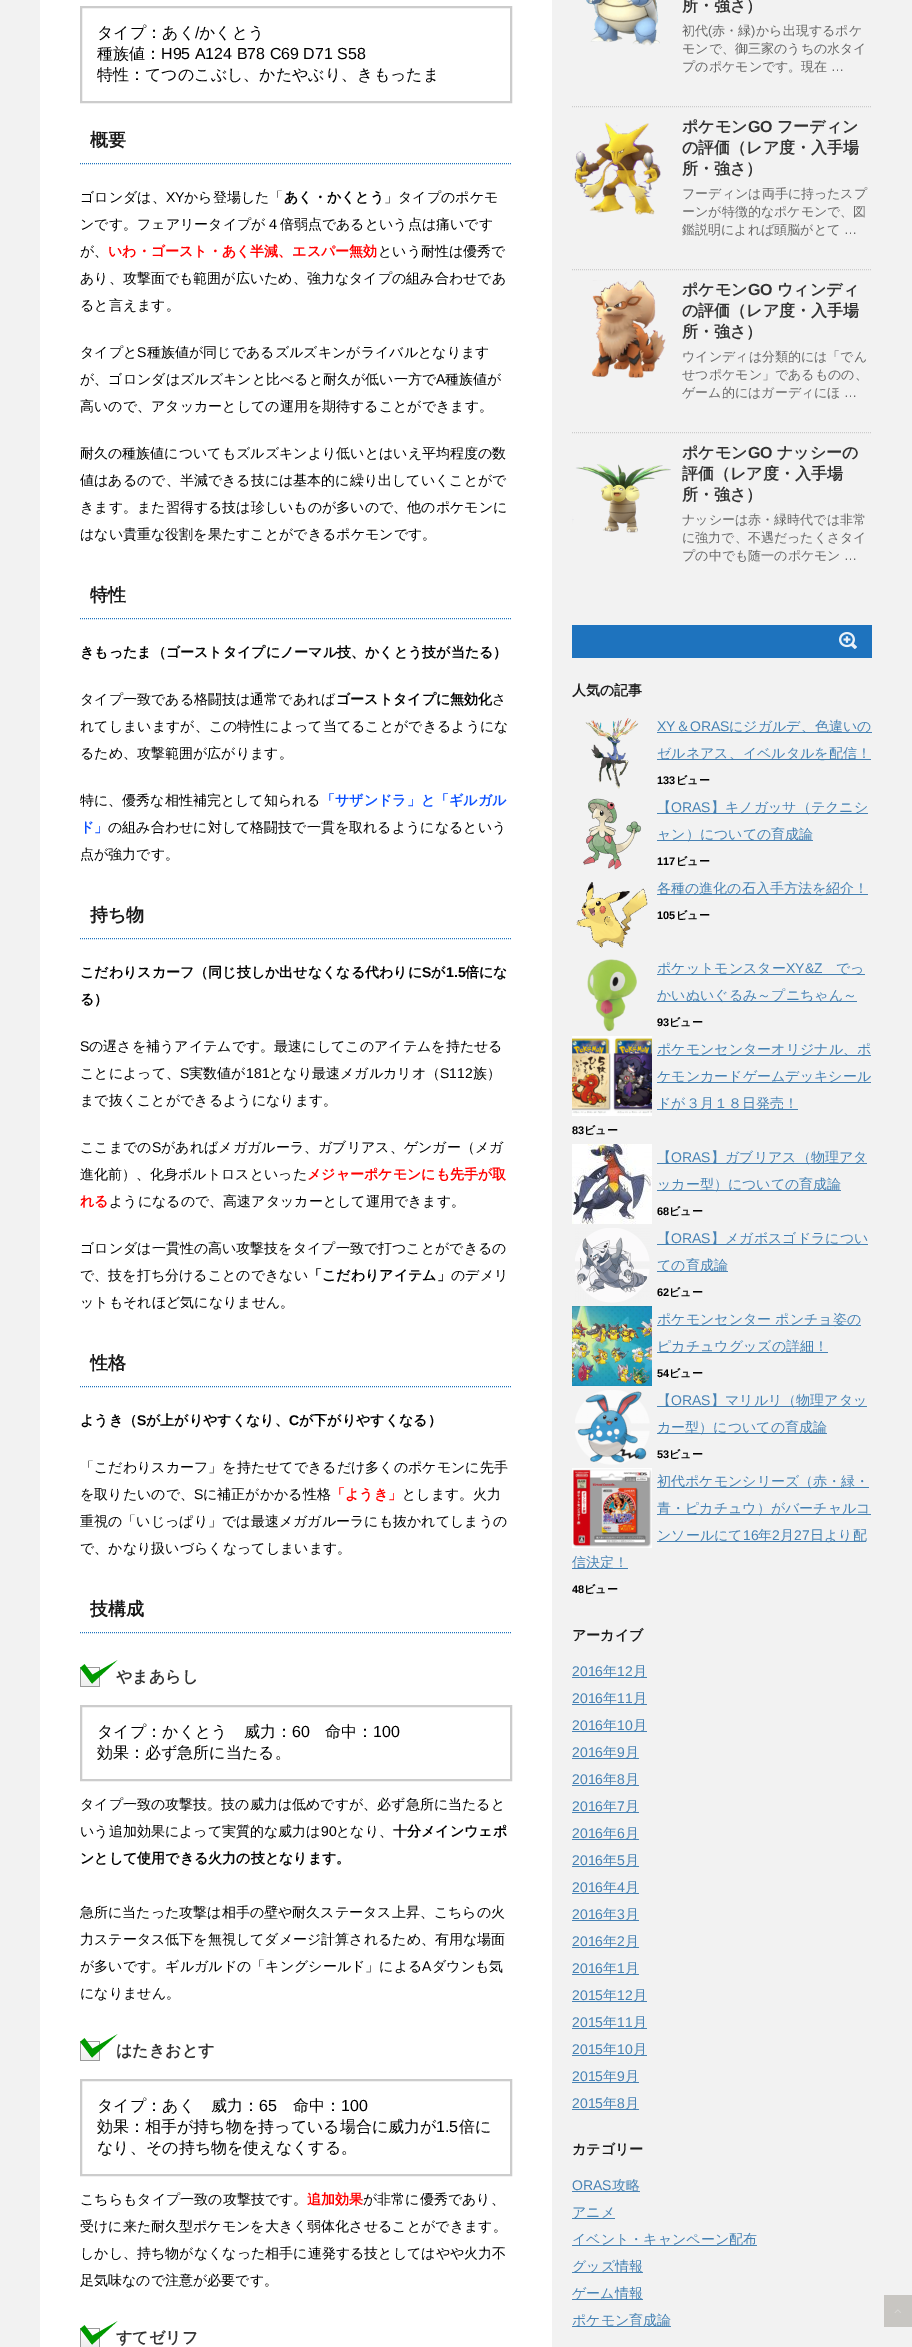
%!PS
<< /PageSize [912 2347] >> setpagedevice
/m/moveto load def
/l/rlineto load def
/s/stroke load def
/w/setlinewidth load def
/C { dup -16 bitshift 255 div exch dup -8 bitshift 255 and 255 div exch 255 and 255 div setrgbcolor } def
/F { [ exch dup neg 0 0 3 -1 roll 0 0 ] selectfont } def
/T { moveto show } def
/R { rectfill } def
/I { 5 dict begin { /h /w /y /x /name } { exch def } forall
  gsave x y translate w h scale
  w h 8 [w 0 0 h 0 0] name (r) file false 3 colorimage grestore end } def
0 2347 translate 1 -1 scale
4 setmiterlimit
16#F2F2F2 C
0 0 912 2347 R
16#FFFFFF C
40 0 512 2347 R
16#CCCCCC C
2 w
81 7 430 95 rectstroke
/WenQuanYiZenHei-Medium 16 F
16#000000 C
(タイプ：あく) 97 38 T
/LiberationSans-Regular 16 F
(/) 195 38 T
/WenQuanYiZenHei-Medium 16 F
(かくとう) 199 38 T
(種族値：) 97 59 T
/LiberationSans-Regular 16 F
(H95 A124 B78 C69 D71 S58) 161 59 T
/WenQuanYiZenHei-Medium 16 F
(特性：てつのこぶし、かたやぶり、きもったま) 97 80 T
16#1E73BE C
1 w
[1 1] 0 setdash
80 163.5 m 432 0 l s
/WenQuanYiZenHei-Bold 18 F
16#1A1A1A C
(概要) 90 146 T
/WenQuanYiZenHei-Medium 14 F
16#000000 C
(ゴロンダは、) 80 202 T
/LiberationSans-Regular 14 F
(XY) 166 202 T
/WenQuanYiZenHei-Medium 14 F
(から登場した「) 184 202 T
/WenQuanYiZenHei-Bold 14 F
(あく・かくとう) 284 202 T
/WenQuanYiZenHei-Medium 14 F
(」タイプのポケモ) 384 202 T
(ンです。フェアリータイプが４倍弱点であるという点は痛いです) 80 229 T
(が、) 80 256 T
/WenQuanYiZenHei-Bold 14 F
16#FF0000 C
(いわ・ゴースト・あく半減、エスパー無効) 108 256 T
/WenQuanYiZenHei-Medium 14 F
16#000000 C
(という耐性は優秀で) 378 256 T
(あり、攻撃面でも範囲が広いため、強力なタイプの組み合わせであ) 80 283 T
(ると言えます。) 80 310 T
(タイプと) 80 357 T
/LiberationSans-Regular 14 F
(S) 137 357 T
/WenQuanYiZenHei-Medium 14 F
(種族値が同じであるズルズキンがライバルとなります) 147 357 T
(が、ゴロンダはズルズキンと比べると耐久が低い一方で) 80 384 T
/LiberationSans-Regular 14 F
(A) 436 384 T
/WenQuanYiZenHei-Medium 14 F
(種族値が) 445 384 T
(高いので、アタッカーとしての運用を期待することができます。) 80 411 T
(耐久の種族値についてもズルズキンより低いとはいえ平均程度の数) 80 458 T
(値はあるので、半減できる技には基本的に繰り出していくことがで) 80 485 T
(きます。また習得する技は珍しいものが多いので、他のポケモンに) 80 512 T
(はない貴重な役割を果たすことができるポケモンです。) 80 539 T
16#1E73BE C
80 618.5 m 432 0 l s
/WenQuanYiZenHei-Bold 18 F
16#1A1A1A C
(特性) 90 601 T
/WenQuanYiZenHei-Bold 14 F
16#000000 C
(きもったま（ゴーストタイプにノーマル技、かくとう技が当たる）) 80 657 T
/WenQuanYiZenHei-Medium 14 F
(タイプ一致である格闘技は通常であれば) 80 704 T
/WenQuanYiZenHei-Bold 14 F
(ゴーストタイプに無効化) 336 704 T
/WenQuanYiZenHei-Medium 14 F
(さ) 492 704 T
(れてしまいますが、この特性によって当てることができるようにな) 80 731 T
(るため、攻撃範囲が広がります。) 80 758 T
(特に、優秀な相性補完として知られる) 80 805 T
/WenQuanYiZenHei-Bold 14 F
16#0A4FFF C
(「サザンドラ」と「ギルガル) 321 805 T
(ド」) 80 832 T
/WenQuanYiZenHei-Medium 14 F
16#000000 C
(の組み合わせに対して格闘技で一貫を取れるようになるという) 108 832 T
(点が強力です。) 80 859 T
16#1E73BE C
80 938.5 m 432 0 l s
/WenQuanYiZenHei-Bold 18 F
16#1A1A1A C
(持ち物) 90 921 T
/WenQuanYiZenHei-Bold 14 F
16#000000 C
(こだわりスカーフ（同じ技しか出せなくなる代わりに) 80 977 T
/LiberationSans-Bold 14 F
(S) 422 977 T
/WenQuanYiZenHei-Bold 14 F
(が) 431 977 T
/LiberationSans-Bold 14 F
(1.5) 446 977 T
/WenQuanYiZenHei-Bold 14 F
(倍にな) 465 977 T
(る）) 80 1004 T
/LiberationSans-Regular 14 F
(S) 80 1051 T
/WenQuanYiZenHei-Medium 14 F
(の遅さを補うアイテムです。最速にしてこのアイテムを持たせる) 89 1051 T
(ことによって、) 80 1078 T
/LiberationSans-Regular 14 F
(S) 180 1078 T
/WenQuanYiZenHei-Medium 14 F
(実数値が) 189 1078 T
/LiberationSans-Regular 14 F
(181) 246 1078 T
/WenQuanYiZenHei-Medium 14 F
(となり最速メガルカリオ（) 269 1078 T
/LiberationSans-Regular 14 F
(S112) 440 1078 T
/WenQuanYiZenHei-Medium 14 F
(族）) 473 1078 T
(まで抜くことができるようになります。) 80 1105 T
(ここまでの) 80 1152 T
/LiberationSans-Regular 14 F
(S) 152 1152 T
/WenQuanYiZenHei-Medium 14 F
(があればメガガルーラ、ガブリアス、ゲンガー（メガ) 161 1152 T
(進化前）、化身ボルトロスといった) 80 1179 T
/WenQuanYiZenHei-Bold 14 F
16#FF0000 C
(メジャーポケモンにも先手が取) 307 1179 T
(れる) 80 1206 T
/WenQuanYiZenHei-Medium 14 F
16#000000 C
(ようになるので、高速アタッカーとして運用できます。) 109 1206 T
(ゴロンダは一貫性の高い攻撃技をタイプ一致で打つことができるの) 80 1253 T
(で、技を打ち分けることのできない) 80 1280 T
/WenQuanYiZenHei-Bold 14 F
(「こだわりアイテム」) 308 1280 T
/WenQuanYiZenHei-Medium 14 F
(のデメリ) 451 1280 T
(ットもそれほど気になりません。) 80 1307 T
16#1E73BE C
80 1386.5 m 432 0 l s
/WenQuanYiZenHei-Bold 18 F
16#1A1A1A C
(性格) 90 1369 T
/WenQuanYiZenHei-Bold 14 F
16#000000 C
(ようき（) 80 1425 T
/LiberationSans-Bold 14 F
(S) 137 1425 T
/WenQuanYiZenHei-Bold 14 F
(が上がりやすくなり、) 146 1425 T
/LiberationSans-Bold 14 F
(C) 289 1425 T
/WenQuanYiZenHei-Bold 14 F
(が下がりやすくなる）) 299 1425 T
/WenQuanYiZenHei-Medium 14 F
(「こだわりスカーフ」を持たせてできるだけ多くのポケモンに先手) 80 1472 T
(を取りたいので、) 80 1499 T
/LiberationSans-Regular 14 F
(S) 194 1499 T
/WenQuanYiZenHei-Medium 14 F
(に補正がかかる性格) 203 1499 T
/WenQuanYiZenHei-Bold 14 F
16#FF0000 C
(「ようき」) 331 1499 T
/WenQuanYiZenHei-Medium 14 F
16#000000 C
(とします。火力) 402 1499 T
(重視の「いじっぱり」では最速メガガルーラにも抜かれてしまうの) 80 1526 T
(で、かなり扱いづらくなってしまいます。) 80 1553 T
16#1E73BE C
80 1632.5 m 432 0 l s
/WenQuanYiZenHei-Bold 18 F
16#1A1A1A C
(技構成) 90 1615 T
(1.rgb) 80 1660 38 27 I
/WenQuanYiZenHei-Bold 16 F
16#333333 C
(やまあらし) 116 1682 T
16#CCCCCC C
2 w
[] 0 setdash
81 1706 430 74 rectstroke
/WenQuanYiZenHei-Medium 16 F
16#000000 C
(タイプ：かくとう　威力：) 97 1737 T
/LiberationSans-Regular 16 F
(60) 292 1737 T
/WenQuanYiZenHei-Medium 16 F
(命中：) 325 1737 T
/LiberationSans-Regular 16 F
(100) 373 1737 T
/WenQuanYiZenHei-Medium 16 F
(効果：必ず急所に当たる。) 97 1758 T
/WenQuanYiZenHei-Medium 14 F
(タイプ一致の攻撃技。技の威力は低めですが、必ず急所に当たると) 80 1809 T
(いう追加効果によって実質的な威力は) 80 1836 T
/LiberationSans-Regular 14 F
(90) 321 1836 T
/WenQuanYiZenHei-Medium 14 F
(となり、) 336 1836 T
/WenQuanYiZenHei-Bold 14 F
(十分メインウェポ) 393 1836 T
(ンとして使用できる火力の技となります。) 80 1863 T
/WenQuanYiZenHei-Medium 14 F
(急所に当たった攻撃は相手の壁や耐久ステータス上昇、こちらの火) 80 1917 T
(力ステータス低下を無視してダメージ計算されるため、有用な場面) 80 1944 T
(が多いです。ギルガルドの「キングシールド」による) 80 1971 T
/LiberationSans-Regular 14 F
(A) 422 1971 T
/WenQuanYiZenHei-Medium 14 F
(ダウンも気) 432 1971 T
(になりません。) 80 1998 T
(1.rgb) 80 2034 38 27 I
/WenQuanYiZenHei-Bold 16 F
16#333333 C
(はたきおとす) 116 2056 T
16#CCCCCC C
81 2080 430 95 rectstroke
/WenQuanYiZenHei-Medium 16 F
16#000000 C
(タイプ：あく　威力：) 97 2111 T
/LiberationSans-Regular 16 F
(65) 259 2111 T
/WenQuanYiZenHei-Medium 16 F
(命中：) 293 2111 T
/LiberationSans-Regular 16 F
(100) 341 2111 T
/WenQuanYiZenHei-Medium 16 F
(効果：相手が持ち物を持っている場合に威力が) 97 2132 T
/LiberationSans-Regular 16 F
(1.5) 436 2132 T
/WenQuanYiZenHei-Medium 16 F
(倍に) 459 2132 T
(なり、その持ち物を使えなくする。) 97 2153 T
/WenQuanYiZenHei-Medium 14 F
(こちらもタイプ一致の攻撃技です。) 80 2204 T
/WenQuanYiZenHei-Bold 14 F
16#FF0000 C
(追加効果) 307 2204 T
/WenQuanYiZenHei-Medium 14 F
16#000000 C
(が非常に優秀であり、) 363 2204 T
(受けに来た耐久型ポケモンを大きく弱体化させることができます。) 80 2231 T
(しかし、持ち物がなくなった相手に連発する技としてはやや火力不) 80 2258 T
(足気味なので注意が必要です。) 80 2285 T
(2.rgb) 80 2321 38 26 I
/WenQuanYiZenHei-Bold 16 F
16#333333 C
(すてゼリフ) 116 2343 T
16#CCCCCC C
1 w
[1 1] 0 setdash
572 106.5 m 300 0 l s
(3.rgb) 586 0 74 46 I
16#333333 C
(所・強さ）) 682 11 T
/WenQuanYiZenHei-Medium 13 F
16#666666 C
(初代) 682 35 T
/LiberationSans-Regular 13 F
(\() 708 35 T
/WenQuanYiZenHei-Medium 13 F
(赤・緑) 712 35 T
/LiberationSans-Regular 13 F
(\)) 751 35 T
/WenQuanYiZenHei-Medium 13 F
(から出現するポケ) 756 35 T
(モンで、御三家のうちの水タイ) 682 53 T
(プのポケモンです。現在) 682 71 T
/LiberationSans-Regular 13 F
(…) 831 71 T
16#CCCCCC C
572 269.5 m 300 0 l s
(4.rgb) 572 122 89 93 I
/WenQuanYiZenHei-Bold 16 F
16#333333 C
(ポケモン) 682 132 T
/LiberationSans-Bold 16 F
(GO) 748 132 T
/WenQuanYiZenHei-Bold 16 F
(フーディン) 777 132 T
(の評価（レア度・入手場) 682 153 T
(所・強さ）) 682 174 T
/WenQuanYiZenHei-Medium 13 F
16#666666 C
(フーディンは両手に持ったスプ) 682 198 T
(ーンが特徴的なポケモンで、図) 682 216 T
(鑑説明によれば頭脳がとて) 682 234 T
/LiberationSans-Regular 13 F
(…) 844 234 T
16#CCCCCC C
572 432.5 m 300 0 l s
(5.rgb) 591 280 75 98 I
/WenQuanYiZenHei-Bold 16 F
16#333333 C
(ポケモン) 682 295 T
/LiberationSans-Bold 16 F
(GO) 748 295 T
/WenQuanYiZenHei-Bold 16 F
(ウィンディ) 777 295 T
(の評価（レア度・入手場) 682 316 T
(所・強さ）) 682 337 T
/WenQuanYiZenHei-Medium 13 F
16#666666 C
(ウインディは分類的には「でん) 682 361 T
(せつポケモン」であるものの、) 682 379 T
(ゲーム的にはガーディにほ) 682 397 T
/LiberationSans-Regular 13 F
(…) 844 397 T
(6.rgb) 572 464 99 69 I
/WenQuanYiZenHei-Bold 16 F
16#333333 C
(ポケモン) 682 458 T
/LiberationSans-Bold 16 F
(GO) 748 458 T
/WenQuanYiZenHei-Bold 16 F
(ナッシーの) 777 458 T
(評価（レア度・入手場) 682 479 T
(所・強さ）) 682 500 T
/WenQuanYiZenHei-Medium 13 F
16#666666 C
(ナッシーは赤・緑時代では非常) 682 524 T
(に強力で、不遇だったくさタイ) 682 542 T
(プの中でも随一のポケモン) 682 560 T
/LiberationSans-Regular 13 F
(…) 844 560 T
16#1E73BE C
572 625 300 33 R
(7.rgb) 839 632 18 17 I
/WenQuanYiZenHei-Bold 14 F
16#1A1A1A C
(人気の記事) 572 695 T
(8.rgb) 585 717 54 72 I
/LiberationSans-Regular 14 F
16#4682B4 C
(XY) 657 731 T
/WenQuanYiZenHei-Medium 14 F
(＆) 676 731 T
657 732 215 1 R
/LiberationSans-Regular 14 F
(ORAS) 690 731 T
/WenQuanYiZenHei-Medium 14 F
(にジガルデ、色違いの) 729 731 T
657 759 214 1 R
(ゼルネアス、イベルタルを配信！) 657 758 T
/LiberationSans-Bold 11 F
16#000000 C
(133) 657 784 T
/WenQuanYiZenHei-Bold 11 F
(ビュー) 676 784 T
(9.rgb) 583 798 59 72 I
16#4682B4 C
657 813 211 1 R
/WenQuanYiZenHei-Medium 14 F
(【) 657 812 T
/LiberationSans-Regular 14 F
(ORAS) 671 812 T
/WenQuanYiZenHei-Medium 14 F
(】キノガッサ（テクニシ) 711 812 T
657 840 156 1 R
(ャン）についての育成論) 657 839 T
/LiberationSans-Bold 11 F
16#000000 C
(117) 657 865 T
/WenQuanYiZenHei-Bold 11 F
(ビュー) 676 865 T
(10.rgb) 576 882 72 66 I
16#4682B4 C
657 894 211 1 R
/WenQuanYiZenHei-Medium 14 F
(各種の進化の石入手方法を紹介！) 657 893 T
/LiberationSans-Bold 11 F
16#000000 C
(105) 657 919 T
/WenQuanYiZenHei-Bold 11 F
(ビュー) 676 919 T
(11.rgb) 587 959 50 73 I
16#4682B4 C
657 974 208 1 R
/WenQuanYiZenHei-Medium 14 F
(ポケットモンスター) 657 973 T
/LiberationSans-Regular 14 F
(XY&Z) 786 973 T
/WenQuanYiZenHei-Medium 14 F
(でっ) 836 973 T
657 1001 200 1 R
(かいぬいぐるみ～プニちゃん～) 657 1000 T
/LiberationSans-Bold 11 F
16#000000 C
(93) 657 1026 T
/WenQuanYiZenHei-Bold 11 F
(ビュー) 669 1026 T
(12.rgb) 572 1036 80 80 I
16#4682B4 C
657 1055 214 1 R
/WenQuanYiZenHei-Medium 14 F
(ポケモンセンターオリジナル、ポ) 657 1054 T
657 1082 214 1 R
(ケモンカードゲームデッキシール) 657 1081 T
657 1109 141 1 R
(ドが３月１８日発売！) 657 1108 T
/LiberationSans-Bold 11 F
16#000000 C
(83) 572 1134 T
/WenQuanYiZenHei-Bold 11 F
(ビュー) 584 1134 T
(13.rgb) 572 1144 80 80 I
16#4682B4 C
657 1163 210 1 R
/WenQuanYiZenHei-Medium 14 F
(【) 657 1162 T
/LiberationSans-Regular 14 F
(ORAS) 671 1162 T
/WenQuanYiZenHei-Medium 14 F
(】ガブリアス（物理アタ) 711 1162 T
657 1190 184 1 R
(ッカー型）についての育成論) 657 1189 T
/LiberationSans-Bold 11 F
16#000000 C
(68) 657 1215 T
/WenQuanYiZenHei-Bold 11 F
(ビュー) 669 1215 T
(14.rgb) 575 1228 75 75 I
16#4682B4 C
657 1244 211 1 R
/WenQuanYiZenHei-Medium 14 F
(【) 657 1243 T
/LiberationSans-Regular 14 F
(ORAS) 671 1243 T
/WenQuanYiZenHei-Medium 14 F
(】メガボスゴドラについ) 711 1243 T
657 1271 71 1 R
(ての育成論) 657 1270 T
/LiberationSans-Bold 11 F
16#000000 C
(62) 657 1296 T
/WenQuanYiZenHei-Bold 11 F
(ビュー) 669 1296 T
(15.rgb) 572 1306 80 80 I
16#4682B4 C
657 1325 204 1 R
/WenQuanYiZenHei-Medium 14 F
(ポケモンセンター ポンチョ姿の) 657 1324 T
657 1352 171 1 R
(ピカチュウグッズの詳細！) 657 1351 T
/LiberationSans-Bold 11 F
16#000000 C
(54) 657 1377 T
/WenQuanYiZenHei-Bold 11 F
(ビュー) 669 1377 T
(16.rgb) 575 1390 75 75 I
16#4682B4 C
657 1406 210 1 R
/WenQuanYiZenHei-Medium 14 F
(【) 657 1405 T
/LiberationSans-Regular 14 F
(ORAS) 671 1405 T
/WenQuanYiZenHei-Medium 14 F
(】マリルリ（物理アタッ) 711 1405 T
657 1433 170 1 R
(カー型）についての育成論) 657 1432 T
/LiberationSans-Bold 11 F
16#000000 C
(53) 657 1458 T
/WenQuanYiZenHei-Bold 11 F
(ビュー) 669 1458 T
(17.rgb) 572 1468 80 80 I
16#4682B4 C
657 1487 212 1 R
/WenQuanYiZenHei-Medium 14 F
(初代ポケモンシリーズ（赤・緑・) 657 1486 T
657 1514 214 1 R
(青・ピカチュウ）がバーチャルコ) 657 1513 T
657 1541 209 1 R
(ンソールにて) 657 1540 T
/LiberationSans-Regular 14 F
(16) 743 1540 T
/WenQuanYiZenHei-Medium 14 F
(年) 758 1540 T
/LiberationSans-Regular 14 F
(2) 772 1540 T
/WenQuanYiZenHei-Medium 14 F
(月) 780 1540 T
/LiberationSans-Regular 14 F
(27) 794 1540 T
/WenQuanYiZenHei-Medium 14 F
(日より配) 810 1540 T
572 1568 56 1 R
(信決定！) 572 1567 T
/LiberationSans-Bold 11 F
16#000000 C
(48) 572 1593 T
/WenQuanYiZenHei-Bold 11 F
(ビュー) 584 1593 T
/WenQuanYiZenHei-Bold 14 F
16#1A1A1A C
(アーカイブ) 572 1640 T
/LiberationSans-Regular 14 F
16#4682B4 C
(2016) 572 1676 T
572 1677 75 1 R
/WenQuanYiZenHei-Medium 14 F
(年) 603 1676 T
/LiberationSans-Regular 14 F
(12) 617 1676 T
/WenQuanYiZenHei-Medium 14 F
(月) 633 1676 T
/LiberationSans-Regular 14 F
(2016) 572 1703 T
572 1704 75 1 R
/WenQuanYiZenHei-Medium 14 F
(年) 603 1703 T
/LiberationSans-Regular 14 F
(11) 617 1703 T
/WenQuanYiZenHei-Medium 14 F
(月) 633 1703 T
/LiberationSans-Regular 14 F
(2016) 572 1730 T
572 1731 75 1 R
/WenQuanYiZenHei-Medium 14 F
(年) 603 1730 T
/LiberationSans-Regular 14 F
(10) 617 1730 T
/WenQuanYiZenHei-Medium 14 F
(月) 633 1730 T
/LiberationSans-Regular 14 F
(2016) 572 1757 T
572 1758 67 1 R
/WenQuanYiZenHei-Medium 14 F
(年) 603 1757 T
/LiberationSans-Regular 14 F
(9) 617 1757 T
/WenQuanYiZenHei-Medium 14 F
(月) 625 1757 T
/LiberationSans-Regular 14 F
(2016) 572 1784 T
572 1785 67 1 R
/WenQuanYiZenHei-Medium 14 F
(年) 603 1784 T
/LiberationSans-Regular 14 F
(8) 617 1784 T
/WenQuanYiZenHei-Medium 14 F
(月) 625 1784 T
/LiberationSans-Regular 14 F
(2016) 572 1811 T
572 1812 67 1 R
/WenQuanYiZenHei-Medium 14 F
(年) 603 1811 T
/LiberationSans-Regular 14 F
(7) 617 1811 T
/WenQuanYiZenHei-Medium 14 F
(月) 625 1811 T
/LiberationSans-Regular 14 F
(2016) 572 1838 T
572 1839 67 1 R
/WenQuanYiZenHei-Medium 14 F
(年) 603 1838 T
/LiberationSans-Regular 14 F
(6) 617 1838 T
/WenQuanYiZenHei-Medium 14 F
(月) 625 1838 T
/LiberationSans-Regular 14 F
(2016) 572 1865 T
572 1866 67 1 R
/WenQuanYiZenHei-Medium 14 F
(年) 603 1865 T
/LiberationSans-Regular 14 F
(5) 617 1865 T
/WenQuanYiZenHei-Medium 14 F
(月) 625 1865 T
/LiberationSans-Regular 14 F
(2016) 572 1892 T
572 1893 67 1 R
/WenQuanYiZenHei-Medium 14 F
(年) 603 1892 T
/LiberationSans-Regular 14 F
(4) 617 1892 T
/WenQuanYiZenHei-Medium 14 F
(月) 625 1892 T
/LiberationSans-Regular 14 F
(2016) 572 1919 T
572 1920 67 1 R
/WenQuanYiZenHei-Medium 14 F
(年) 603 1919 T
/LiberationSans-Regular 14 F
(3) 617 1919 T
/WenQuanYiZenHei-Medium 14 F
(月) 625 1919 T
/LiberationSans-Regular 14 F
(2016) 572 1946 T
572 1947 67 1 R
/WenQuanYiZenHei-Medium 14 F
(年) 603 1946 T
/LiberationSans-Regular 14 F
(2) 617 1946 T
/WenQuanYiZenHei-Medium 14 F
(月) 625 1946 T
/LiberationSans-Regular 14 F
(2016) 572 1973 T
572 1974 67 1 R
/WenQuanYiZenHei-Medium 14 F
(年) 603 1973 T
/LiberationSans-Regular 14 F
(1) 617 1973 T
/WenQuanYiZenHei-Medium 14 F
(月) 625 1973 T
/LiberationSans-Regular 14 F
(2015) 572 2000 T
572 2001 75 1 R
/WenQuanYiZenHei-Medium 14 F
(年) 603 2000 T
/LiberationSans-Regular 14 F
(12) 617 2000 T
/WenQuanYiZenHei-Medium 14 F
(月) 633 2000 T
/LiberationSans-Regular 14 F
(2015) 572 2027 T
572 2028 75 1 R
/WenQuanYiZenHei-Medium 14 F
(年) 603 2027 T
/LiberationSans-Regular 14 F
(11) 617 2027 T
/WenQuanYiZenHei-Medium 14 F
(月) 633 2027 T
/LiberationSans-Regular 14 F
(2015) 572 2054 T
572 2055 75 1 R
/WenQuanYiZenHei-Medium 14 F
(年) 603 2054 T
/LiberationSans-Regular 14 F
(10) 617 2054 T
/WenQuanYiZenHei-Medium 14 F
(月) 633 2054 T
/LiberationSans-Regular 14 F
(2015) 572 2081 T
572 2082 67 1 R
/WenQuanYiZenHei-Medium 14 F
(年) 603 2081 T
/LiberationSans-Regular 14 F
(9) 617 2081 T
/WenQuanYiZenHei-Medium 14 F
(月) 625 2081 T
/LiberationSans-Regular 14 F
(2015) 572 2108 T
572 2109 67 1 R
/WenQuanYiZenHei-Medium 14 F
(年) 603 2108 T
/LiberationSans-Regular 14 F
(8) 617 2108 T
/WenQuanYiZenHei-Medium 14 F
(月) 625 2108 T
/WenQuanYiZenHei-Bold 14 F
16#1A1A1A C
(カテゴリー) 572 2154 T
/LiberationSans-Regular 14 F
16#4682B4 C
(ORAS) 572 2190 T
572 2191 68 1 R
/WenQuanYiZenHei-Medium 14 F
(攻略) 612 2190 T
572 2218 43 1 R
(アニメ) 572 2217 T
572 2245 185 1 R
(イベント・キャンペーン配布) 572 2244 T
572 2272 71 1 R
(グッズ情報) 572 2271 T
572 2299 71 1 R
(ゲーム情報) 572 2298 T
572 2326 99 1 R
(ポケモン育成論) 572 2325 T
16#C8C6C2 C
884 2295 28 32 R
(18.rgb) 894 2309 7 4 I
showpage
